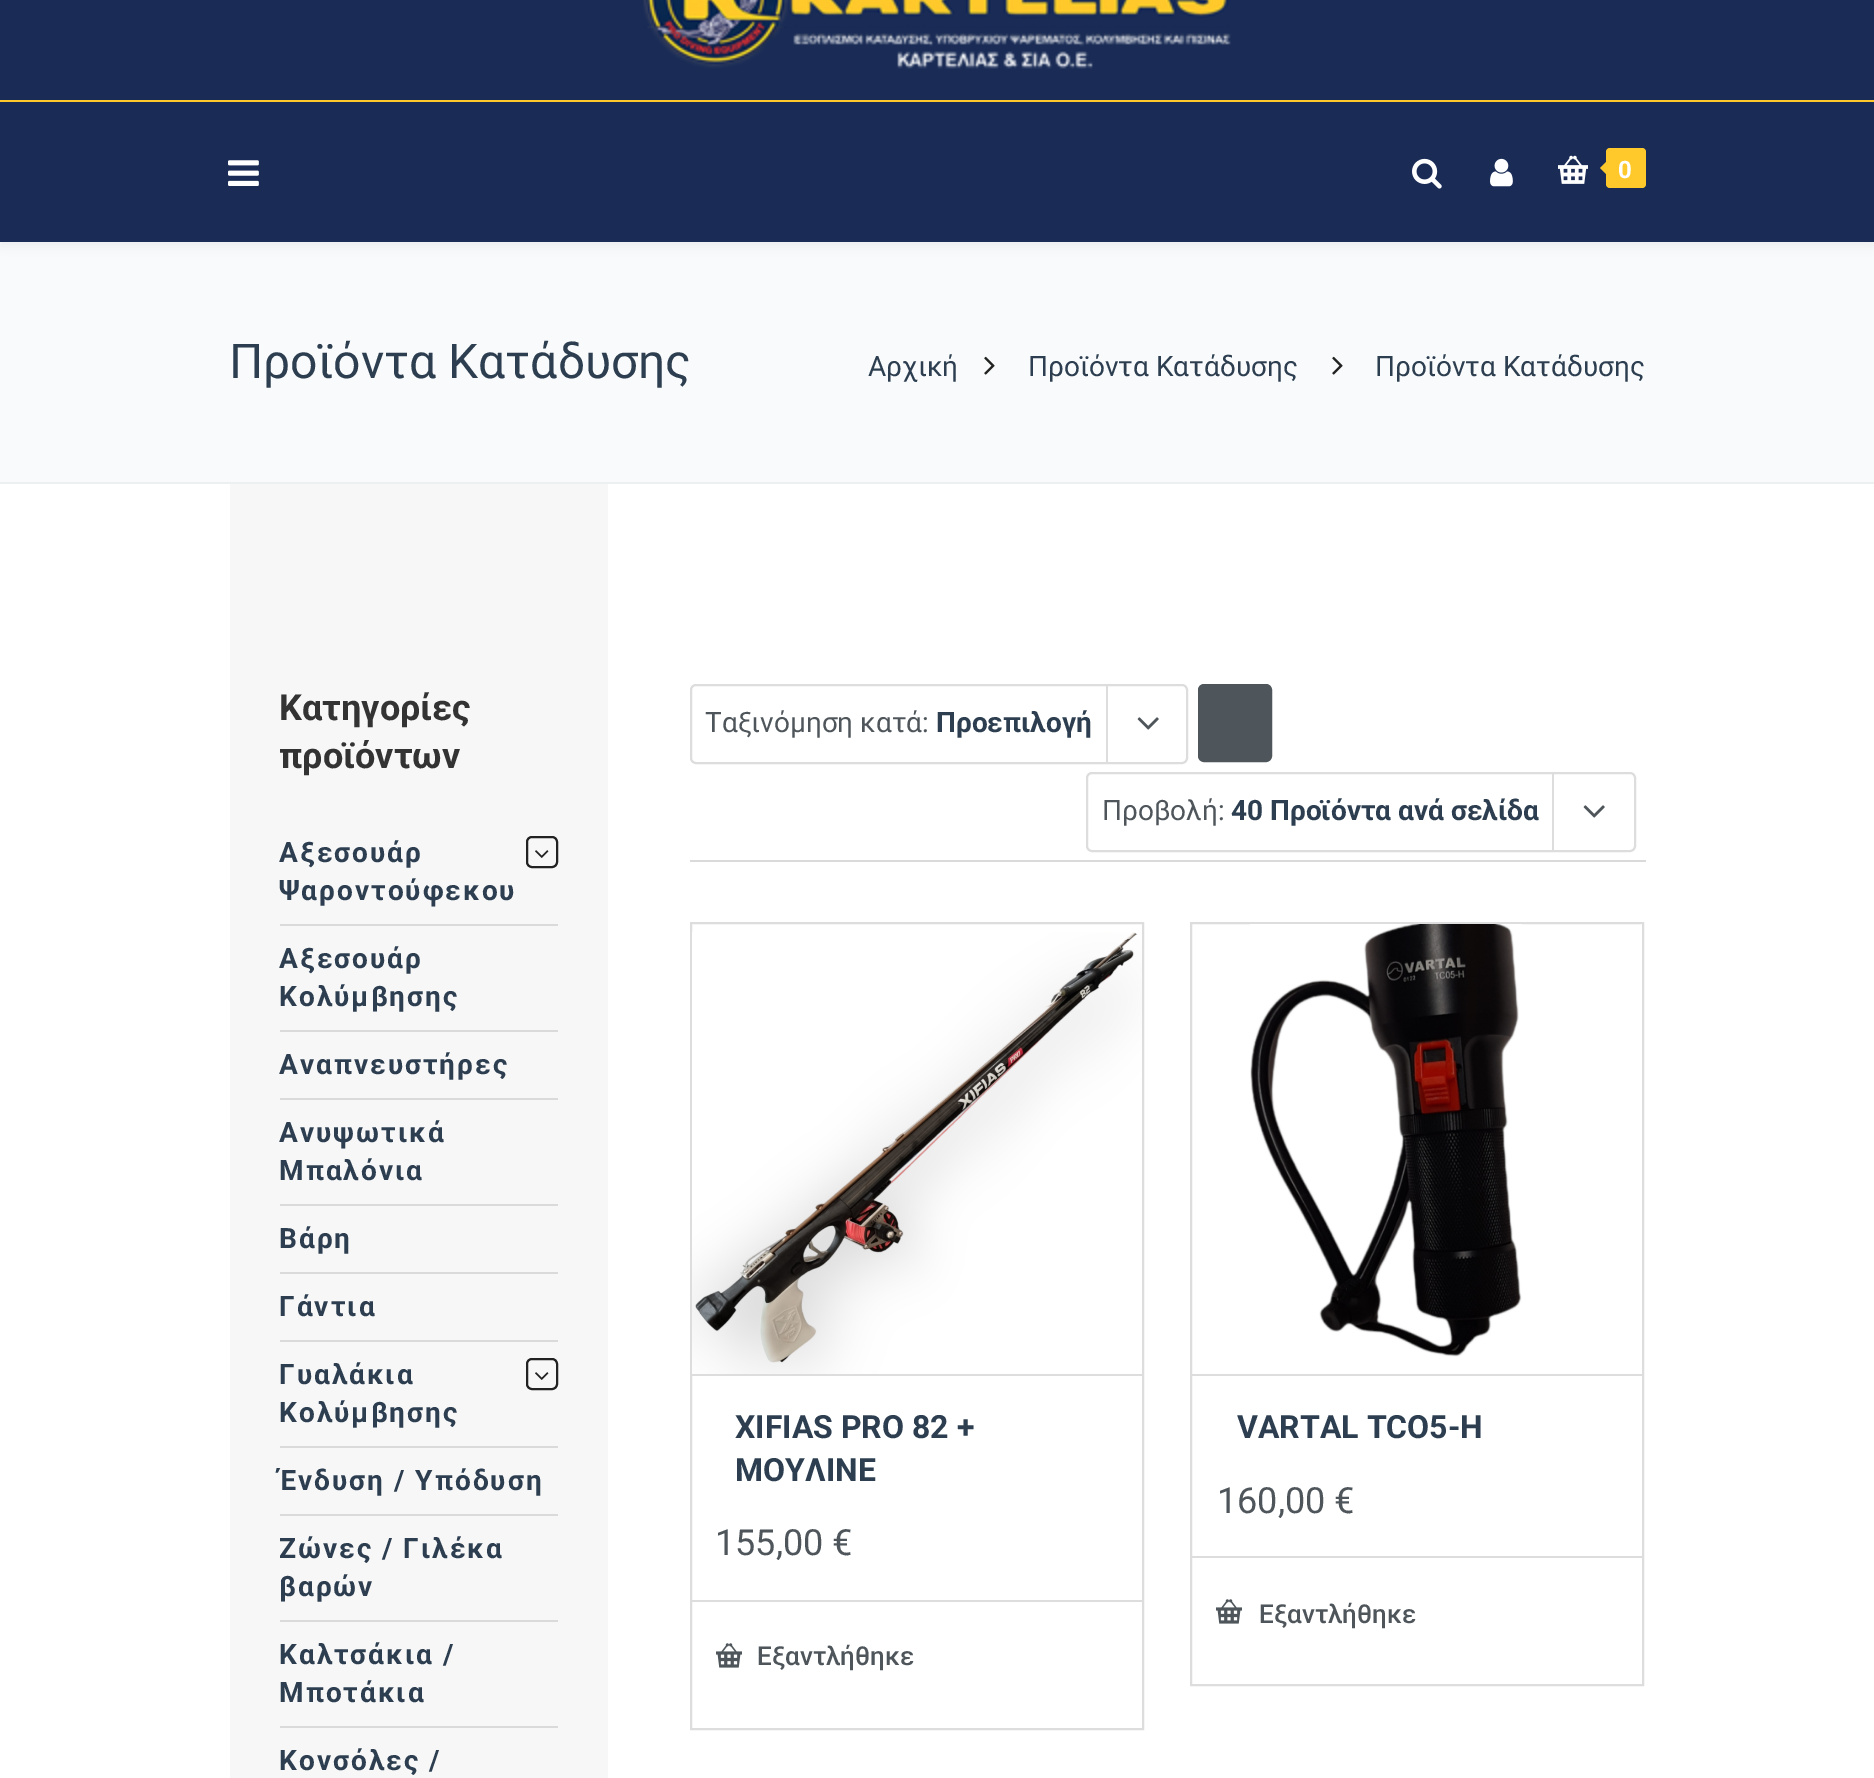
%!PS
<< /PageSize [1874 1778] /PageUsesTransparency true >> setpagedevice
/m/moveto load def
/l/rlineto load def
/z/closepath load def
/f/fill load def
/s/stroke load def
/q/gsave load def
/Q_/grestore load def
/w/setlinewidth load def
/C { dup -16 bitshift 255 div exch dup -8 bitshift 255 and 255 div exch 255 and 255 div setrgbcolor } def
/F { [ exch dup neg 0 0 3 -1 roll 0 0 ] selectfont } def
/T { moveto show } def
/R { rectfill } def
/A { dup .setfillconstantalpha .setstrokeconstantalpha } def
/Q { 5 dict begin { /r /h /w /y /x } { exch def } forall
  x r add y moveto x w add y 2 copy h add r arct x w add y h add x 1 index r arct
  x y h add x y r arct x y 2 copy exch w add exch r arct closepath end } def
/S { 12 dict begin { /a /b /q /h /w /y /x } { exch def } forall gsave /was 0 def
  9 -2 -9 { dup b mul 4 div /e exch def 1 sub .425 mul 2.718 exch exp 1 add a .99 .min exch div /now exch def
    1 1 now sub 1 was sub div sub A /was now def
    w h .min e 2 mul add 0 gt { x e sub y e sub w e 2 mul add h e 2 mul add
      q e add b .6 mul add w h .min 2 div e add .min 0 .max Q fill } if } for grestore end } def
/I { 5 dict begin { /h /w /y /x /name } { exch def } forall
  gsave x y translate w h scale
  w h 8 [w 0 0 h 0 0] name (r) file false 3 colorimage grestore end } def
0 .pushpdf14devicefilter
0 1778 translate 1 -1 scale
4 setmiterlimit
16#FFFFFF C
0 0 1874 1778 R
16#1A2C56 C
0 0 1874 100 R
(1.rgb) 643 0 588 69 I
16#F9FAFB C
0 242 1874 240 R
16#000000 C
0 104 1874 142 0 6 .05 S
16#1A2C56 C
0 102 1874 140 R
16#FFC82B C
0 100 1874 2 R
(2.rgb) 228 160 31 26 I
(3.rgb) 1412 158 30 31 I
(4.rgb) 1490 158 23 29 I
(5.rgb) 1558 155 30 29 I
1606 148 40 40 4 Q f
1610 158 m 0 20 l -10 -10 l z f
/Roboto-Bold 24 F
16#FFFFFF C
(0) 1618 178 T
16#ECF0F1 C
0 482 1874 2 R
/Roboto-Regular 48 F
16#2C3E50 C
(Προϊόντα Κατάδυσης) 229 378 T
/Roboto-Regular 28 F
(Αρχική) 868 376 T
(6.rgb) 984 356 11 19 I
(Προϊόντα Κατάδυσης) 1028 376 T
(6.rgb) 1332 356 11 19 I
(Προϊόντα Κατάδυσης) 1375 376 T
16#F7F7F7 C
230 484 378 1294 R
/Roboto-Bold 36 F
16#333333 C
(Κατηγορίες) 279 720 T
(προϊόντων) 279 768 T
/Roboto-Bold 28 F
16#2C3E50 C
279 862 m 2 0 (Αξεσουάρ) ashow
279 900 m 2 0 (Ψαροντούφεκου) ashow
16#222222 C
2 w
527 837 30 30 5 Q s
(7.rgb) 535 850 14 8 I
16#DADADA C
280 924 278 2 R
16#2C3E50 C
279 968 m 2 0 (Αξεσουάρ) ashow
279 1006 m 2 0 (Κολύμβησης) ashow
16#DADADA C
280 1030 278 2 R
16#2C3E50 C
279 1074 m 2 0 (Αναπνευστήρες) ashow
16#DADADA C
280 1098 278 2 R
16#2C3E50 C
279 1142 m 2 0 (Ανυψωτικά) ashow
279 1180 m 2 0 (Μπαλόνια) ashow
16#DADADA C
280 1204 278 2 R
16#2C3E50 C
279 1248 m 2 0 (Βάρη) ashow
16#DADADA C
280 1272 278 2 R
16#2C3E50 C
279 1316 m 2 0 (Γάντια) ashow
16#DADADA C
280 1340 278 2 R
16#2C3E50 C
279 1384 m 2 0 (Γυαλάκια) ashow
279 1422 m 2 0 (Κολύμβησης) ashow
16#222222 C
527 1359 30 30 5 Q s
(7.rgb) 535 1372 14 8 I
16#DADADA C
280 1446 278 2 R
16#2C3E50 C
279 1490 m 2 0 (Ένδυση / Υπόδυση) ashow
16#DADADA C
280 1514 278 2 R
16#2C3E50 C
279 1558 m 2 0 (Ζώνες / Γιλέκα) ashow
279 1596 m 2 0 (βαρών) ashow
16#DADADA C
280 1620 278 2 R
16#2C3E50 C
279 1664 m 2 0 (Καλτσάκια /) ashow
279 1702 m 2 0 (Μποτάκια) ashow
16#DADADA C
280 1726 278 2 R
16#2C3E50 C
279 1770 m 2 0 (Κονσόλες /) ashow
16#DADADA C
690 860 956 2 R
16#DDDDDD C
691 685 496 78 5 Q s
/Roboto-Regular 28 F
16#4F565B C
(Ταξινόμηση κατά:) 705 732 T
/Roboto-Bold 28 F
16#2C3E50 C
(Προεπιλογή) 936 732 T
16#DDDDDD C
1106 684 2 78 R
(8.rgb) 1137 717 22 13 I
16#4F565B C
1199 685 72 76 5 Q q f Q_
s
16#DDDDDD C
1087 773 548 78 5 Q s
/Roboto-Regular 28 F
16#4F565B C
(Προβολή:) 1102 820 T
/Roboto-Bold 28 F
16#2C3E50 C
(40 Προϊόντα ανά σελίδα) 1231 820 T
16#DDDDDD C
1552 772 2 78 R
(8.rgb) 1583 805 22 13 I
691 923 452 806 rectstroke
(9.rgb) 692 932 450 442 I
692 1374 450 2 R
692 1600 450 2 R
/Roboto-Bold 32 F
16#2C3E50 C
(XIFIAS PRO 82 +) 735 1438 T
(ΜΟΥΛΙΝΕ) 735 1481 T
/Roboto-Regular 36 F
16#4F565B C
(155,00 €) 715 1555 T
(10.rgb) 716 1643 26 25 I
/Roboto-Medium 26 F
(Εξαντλήθηκε) 757 1665 T
16#DDDDDD C
1191 923 452 762 rectstroke
(11.rgb) 1250 924 272 433 I
1192 1374 450 2 R
1192 1556 450 2 R
/Roboto-Bold 32 F
16#2C3E50 C
(VARTAL TCO5-H) 1237 1438 T
/Roboto-Regular 36 F
16#4F565B C
(160,00 €) 1217 1513 T
(10.rgb) 1216 1599 26 25 I
/Roboto-Medium 26 F
(Εξαντλήθηκε) 1259 1623 T
.poppdf14devicefilter showpage
